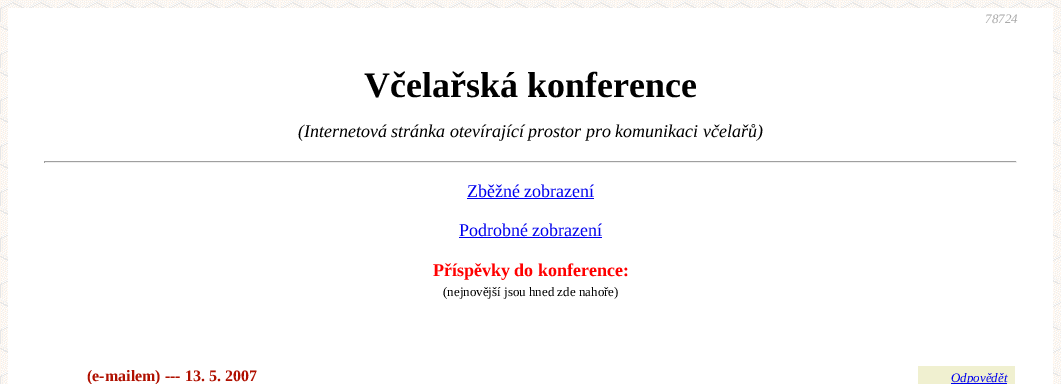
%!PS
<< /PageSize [1061 384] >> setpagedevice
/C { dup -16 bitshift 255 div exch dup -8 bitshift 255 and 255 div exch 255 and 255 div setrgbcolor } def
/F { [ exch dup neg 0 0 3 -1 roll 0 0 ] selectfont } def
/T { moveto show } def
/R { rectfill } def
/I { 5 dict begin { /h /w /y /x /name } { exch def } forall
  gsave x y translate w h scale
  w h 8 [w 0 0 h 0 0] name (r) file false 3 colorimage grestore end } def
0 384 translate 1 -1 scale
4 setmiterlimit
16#FFFFFF C
0 0 1061 384 R
(1.rgb) 0 0 1061 384 I
8 8 1045 376 R
/LiberationSerif-Italic 13 F
16#AAAAAA C
(78724) 985 23 T
/LiberationSerif-Bold 36 F
16#000000 C
(Včelařská konference) 364 97 T
/LiberationSerif-Italic 18 F
(\(Internetová stránka otevírající prostor pro komunikaci včelařů\)) 298 137 T
16#9F9F9F C
44 161 973 1 R
16#EEEEEE C
1016 161 1 2 R
44 162 973 1 R
16#9F9F9F C
44 161 1 2 R
/LiberationSerif-Regular 18 F
16#0000EE C
(Zběžné zobrazení) 467 197 T
467 198 127 1 R
(Podrobné zobrazení) 459 236 T
459 237 143 1 R
/LiberationSerif-Bold 18 F
16#FF0000 C
(Příspěvky do konference:) 433 276 T
/LiberationSerif-Regular 13 F
16#000000 C
(\(nejnovější jsou hned zde nahoře\)) 443 296 T
/LiberationSerif-Bold 16 F
16#B01000 C
(\(e-mailem\) --- 13. 5. 2007) 87 381 T
16#F0F0D0 C
918 366 97 18 R
16#0000EE C
951 383 56 1 R
/LiberationSerif-Italic 13 F
(Odpovědět) 951 382 T
showpage
